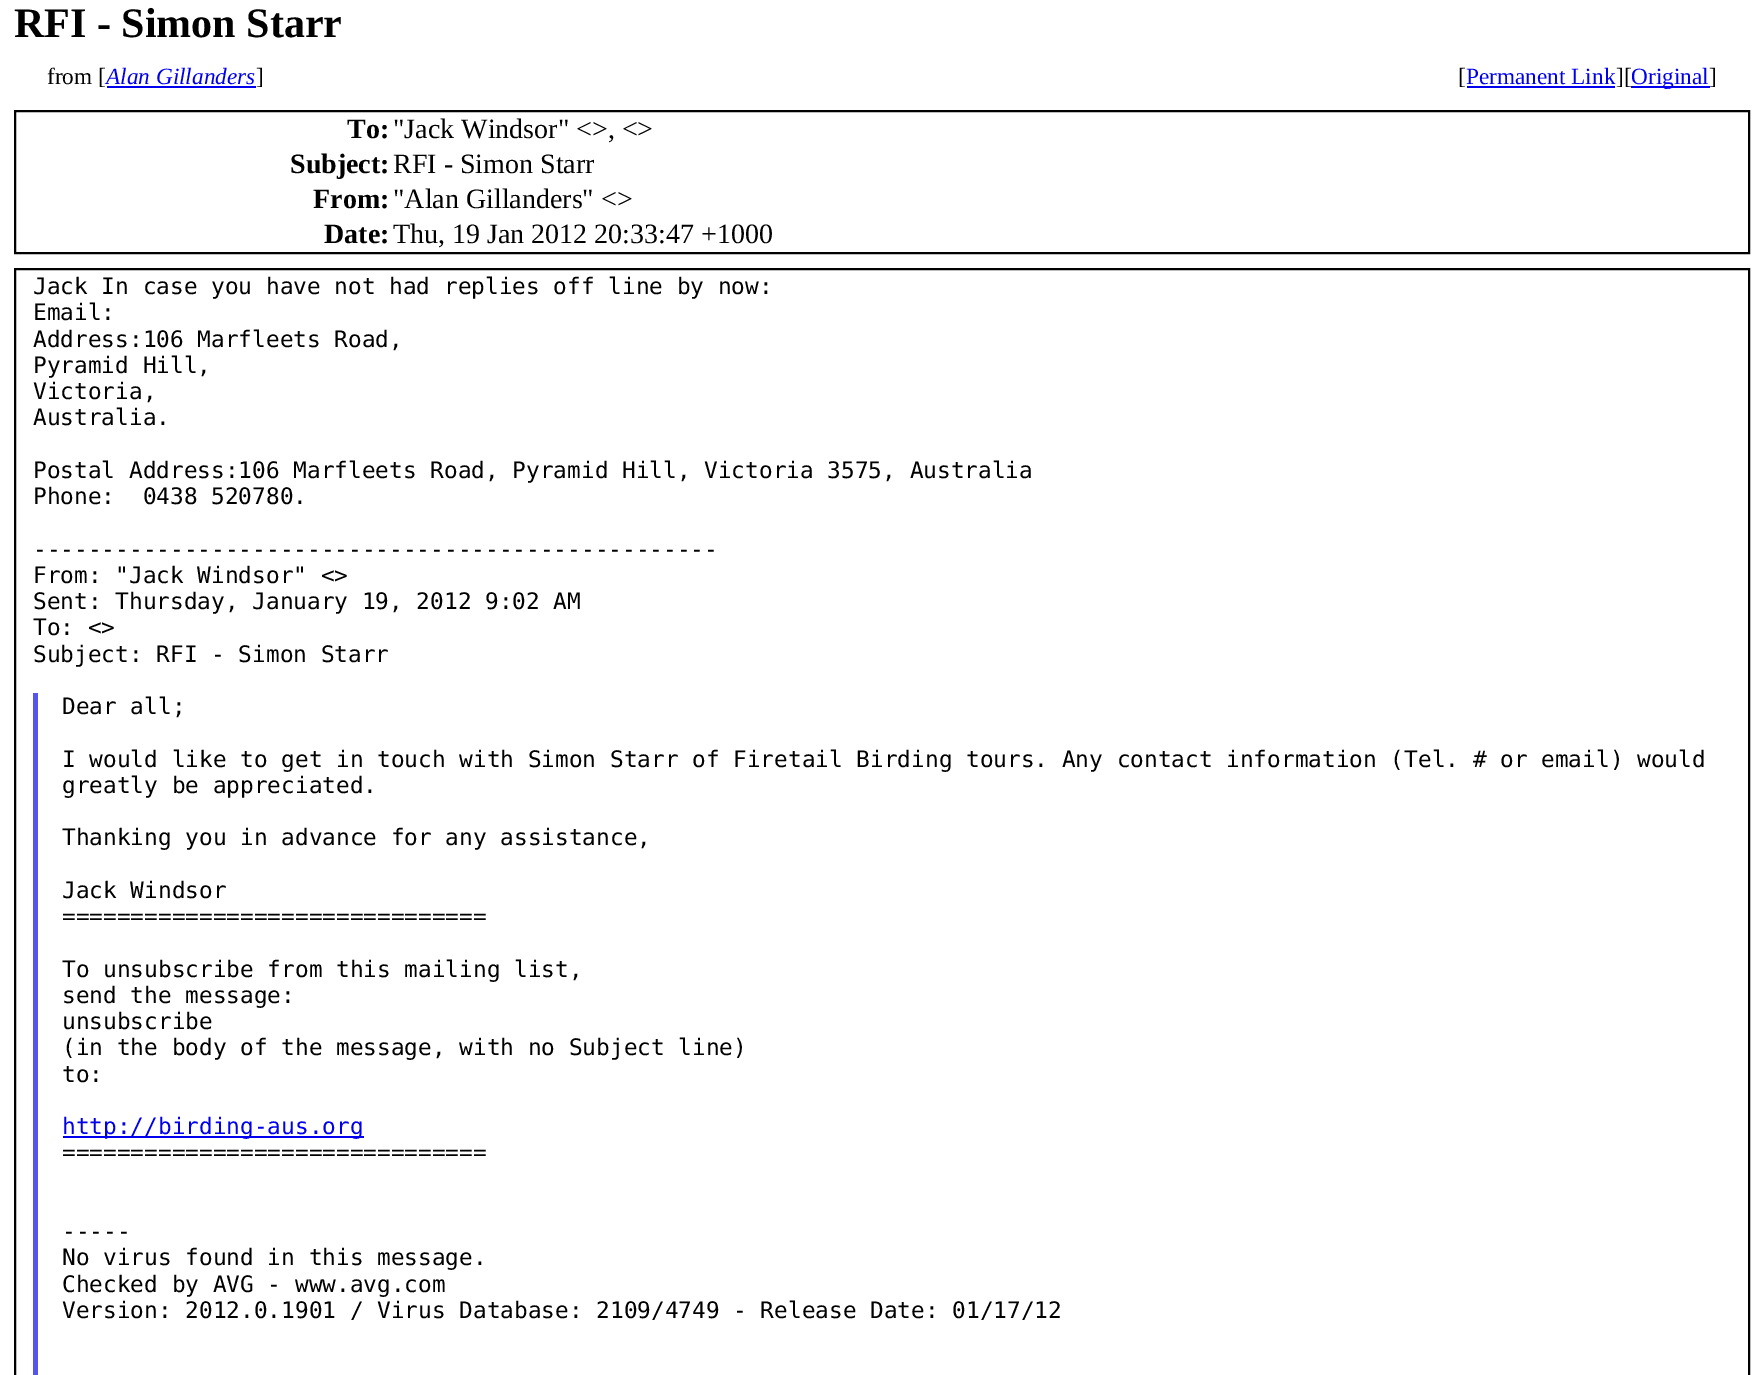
%!PS
<< /PageSize [1764 1375] >> setpagedevice
/w/setlinewidth load def
/C { dup -16 bitshift 255 div exch dup -8 bitshift 255 and 255 div exch 255 and 255 div setrgbcolor } def
/F { [ exch dup neg 0 0 3 -1 roll 0 0 ] selectfont } def
/T { moveto show } def
/R { rectfill } def
0 1375 translate 1 -1 scale
4 setmiterlimit
16#FFFFFF C
0 0 1764 1375 R
/LiberationSerif-Bold 42 F
16#000000 C
(RFI - Simon Starr) 14 37 T
/LiberationSerif-Regular 23.25 F
(from [) 47 84 T
/LiberationSerif-Italic 23.25 F
16#0000EE C
(Alan Gillanders) 106 84 T
/LiberationSerif-Regular 23.25 F
16#000000 C
(]) 256 84 T
16#0000EE C
107 86 149 2 R
16#000000 C
([) 1458 84 T
16#0000EE C
1467 86 148 2 R
(Permanent Link) 1466 84 T
16#000000 C
(][) 1616 84 T
16#0000EE C
1631 86 79 2 R
(Original) 1631 84 T
16#000000 C
(]) 1709 84 T
2 w
15 111 1734 142 rectstroke
/LiberationSerif-Bold 28 F
(To:) 347 138 T
/LiberationSerif-Regular 28 F
("Jack Windsor" <>, <>) 393 138 T
/LiberationSerif-Bold 28 F
(Subject:) 290 173 T
/LiberationSerif-Regular 28 F
(RFI - Simon Starr) 393 173 T
/LiberationSerif-Bold 28 F
(From:) 313 208 T
/LiberationSerif-Regular 28 F
("Alan Gillanders" <>) 393 208 T
/LiberationSerif-Bold 28 F
(Date:) 324 243 T
/LiberationSerif-Regular 28 F
(Thu, 19 Jan 2012 20:33:47 +1000) 393 243 T
15 269 1734 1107 rectstroke
/DejaVuSansMono-Regular 22.75 F
(Jack In case you have not had replies off line by now:) 33 294 T
(Email:) 33 320 T
(Address:106 Marfleets Road,) 33 347 T
(Pyramid Hill,) 33 373 T
(Victoria,) 33 399 T
(Australia.) 33 425 T
(Postal Address:106 Marfleets Road, Pyramid Hill, Victoria 3575, Australia) 33 478 T
(Phone:  0438 520780.) 33 504 T
(--------------------------------------------------) 33 557 T
(From: "Jack Windsor" <>) 33 583 T
(Sent: Thursday, January 19, 2012 9:02 AM) 33 609 T
(To: <>) 33 635 T
(Subject: RFI - Simon Starr) 33 662 T
16#5555EE C
33 693 5 682 R
16#000000 C
(Dear all;) 62 714 T
(I would like to get in touch with Simon Starr of Firetail Birding tours. Any contact information \(Tel. # or email\) would) 62 767 T
(greatly be appreciated.) 62 793 T
(Thanking you in advance for any assistance,) 62 845 T
(Jack Windsor) 62 898 T
(===============================) 62 924 T
(To unsubscribe from this mailing list,) 62 977 T
(send the message:) 62 1003 T
(unsubscribe) 62 1029 T
(\(in the body of the message, with no Subject line\)) 62 1055 T
(to:) 62 1082 T
16#0000EE C
63 1136 301 2 R
(http://birding-aus.org) 62 1134 T
16#000000 C
(===============================) 62 1160 T
(-----) 62 1239 T
(No virus found in this message.) 62 1265 T
(Checked by AVG - www.avg.com) 62 1292 T
(Version: 2012.0.1901 / Virus Database: 2109/4749 - Release Date: 01/17/12) 62 1318 T
showpage
